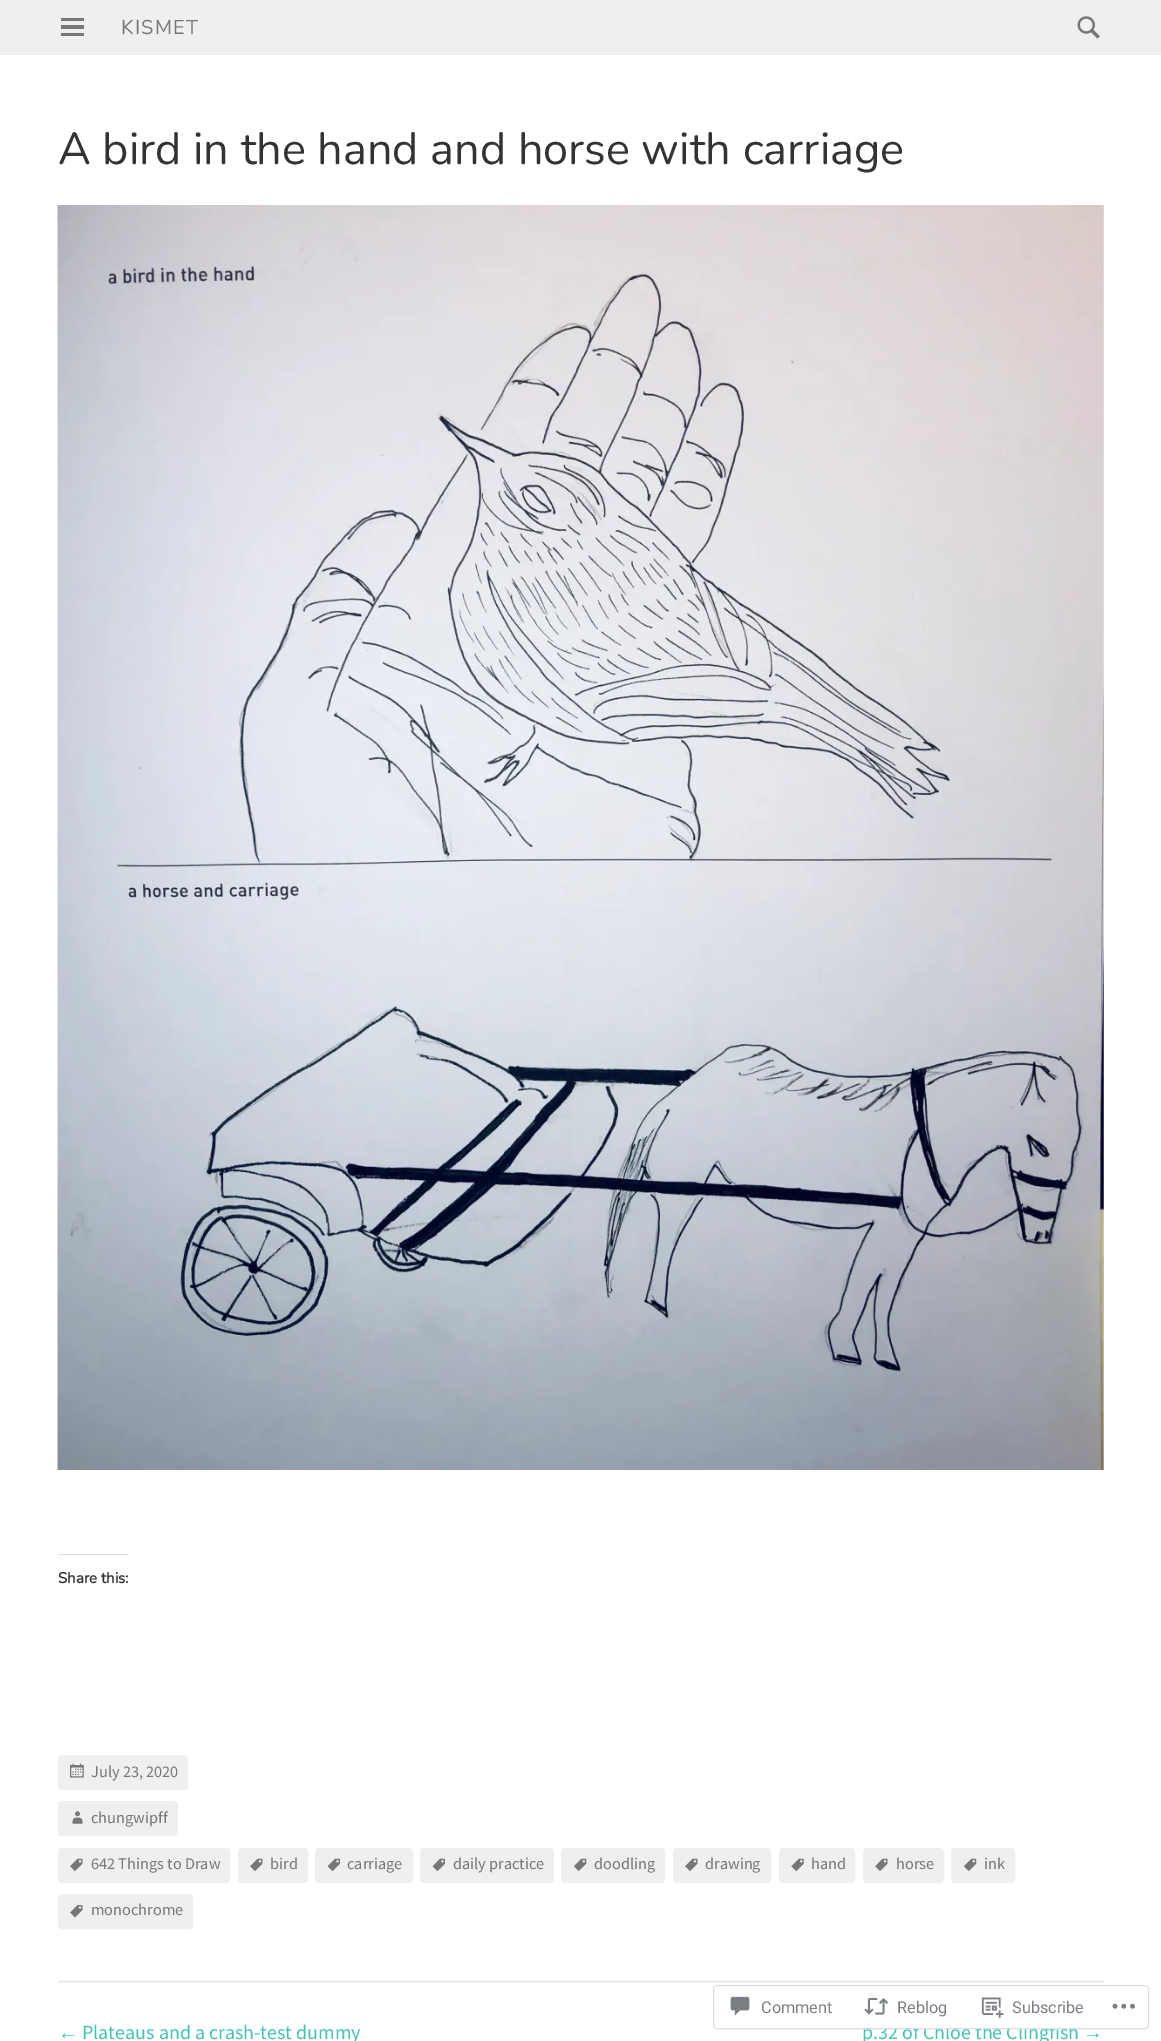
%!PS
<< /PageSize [1161 2041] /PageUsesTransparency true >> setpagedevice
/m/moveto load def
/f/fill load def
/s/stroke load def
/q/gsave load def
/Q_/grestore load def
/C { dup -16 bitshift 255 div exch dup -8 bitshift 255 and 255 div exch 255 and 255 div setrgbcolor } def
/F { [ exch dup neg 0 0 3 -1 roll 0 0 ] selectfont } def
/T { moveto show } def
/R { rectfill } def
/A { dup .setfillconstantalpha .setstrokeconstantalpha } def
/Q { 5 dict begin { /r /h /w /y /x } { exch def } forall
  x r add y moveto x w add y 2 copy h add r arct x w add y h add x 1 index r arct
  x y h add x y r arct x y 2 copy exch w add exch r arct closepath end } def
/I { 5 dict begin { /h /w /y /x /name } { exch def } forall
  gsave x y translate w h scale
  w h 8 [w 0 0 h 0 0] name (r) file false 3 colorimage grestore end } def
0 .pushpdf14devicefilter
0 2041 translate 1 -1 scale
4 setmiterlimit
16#FFFFFF C
0 0 1161 2041 R
16#EFEFEF C
0 0 1161 55 R
16#777777 C
61 18 23 3 R
61 25 23 4 R
61 33 23 3 R
/Nunito-ExtraLight 20 F
121 34 m 1.25 0 (KISMET) ashow
(1.rgb) 1077 16 23 23 I
16#EFEFEF C
58 1980 1046 3 R
/Nunito-ExtraLight 45 F
16#333333 C
(A bird in the hand and horse with carriage) 58 164 T
(2.rgb) 57 205 1047 1265 I
16#DCDCDE C
58 1554 71 1 R
/Nunito-Bold 15 F
16#333333 C
(Share this:) 58 1583 T
16#EFEFEF C
58.5 1755.5 129 34 3.5 Q q f Q_
s
(3.rgb) 70 1763 14 15 I
/SourceSansPro-Regular 16.25 F
16#777777 C
(July 23, 2020) 91 1777 T
16#EFEFEF C
58.5 1801.5 119 34 3.5 Q q f Q_
s
(4.rgb) 72 1811 11 13 I
16#777777 C
(chungwipff) 91 1823 T
16#EFEFEF C
58.5 1848.5 171 34 3.5 Q q f Q_
s
(5.rgb) 70 1858 13 13 I
16#777777 C
(642 Things to Draw) 91 1869 T
16#EFEFEF C
238.5 1848.5 69 34 3.5 Q q f Q_
s
(5.rgb) 250 1858 13 13 I
16#777777 C
(bird) 270 1869 T
16#EFEFEF C
315.5 1848.5 97 34 3.5 Q q f Q_
s
(6.rgb) 327 1858 13 14 I
16#777777 C
(carriage) 347 1869 T
16#EFEFEF C
420.5 1848.5 133 34 3.5 Q q f Q_
s
(6.rgb) 432 1858 13 14 I
16#777777 C
(daily practice) 453 1869 T
16#EFEFEF C
561.5 1848.5 103 34 3.5 Q q f Q_
s
(7.rgb) 573 1858 14 14 I
16#777777 C
(doodling) 594 1869 T
16#EFEFEF C
673.5 1848.5 97 34 3.5 Q q f Q_
s
(5.rgb) 685 1858 13 13 I
16#777777 C
(drawing) 705 1869 T
16#EFEFEF C
779.5 1848.5 75 34 3.5 Q q f Q_
s
(8.rgb) 791 1858 13 14 I
16#777777 C
(hand) 811 1869 T
16#EFEFEF C
863.5 1848.5 80 34 3.5 Q q f Q_
s
(5.rgb) 875 1858 13 13 I
16#777777 C
(horse) 896 1869 T
16#EFEFEF C
951.5 1848.5 63 34 3.5 Q q f Q_
s
(7.rgb) 963 1858 14 14 I
16#777777 C
(ink) 984 1869 T
16#EFEFEF C
58.5 1894.5 134 34 3.5 Q q f Q_
s
(9.rgb) 70 1905 13 13 I
16#777777 C
(monochrome) 91 1915 T
/LiberationSans-Regular 20 F
16#44C2B2 C
(←) 58 2039 T
/SourceSansPro-Regular 20 F
(Plateaus and a crash-test dummy) 82 2039 T
(p.32 of Chloe the Clingfish) 862 2039 T
/LiberationSans-Regular 20 F
(→) 1083 2039 T
0.98 A
16#FFFFFF C
713 1985 436 44 4 Q f
16#DCDCDE C
713.5 1985.5 435 43 3.5 Q s
1 A
(10.rgb) 730 1996 20 20 I
/Roboto-Regular 16.25 F
16#7B7F85 C
(Comment) 761 2013 T
(11.rgb) 864 1997 25 18 I
(Reblog) 897 2013 T
(12.rgb) 981 1997 23 21 I
(Subscribe) 1012 2013 T
(13.rgb) 1112 2003 23 6 I
.poppdf14devicefilter showpage
